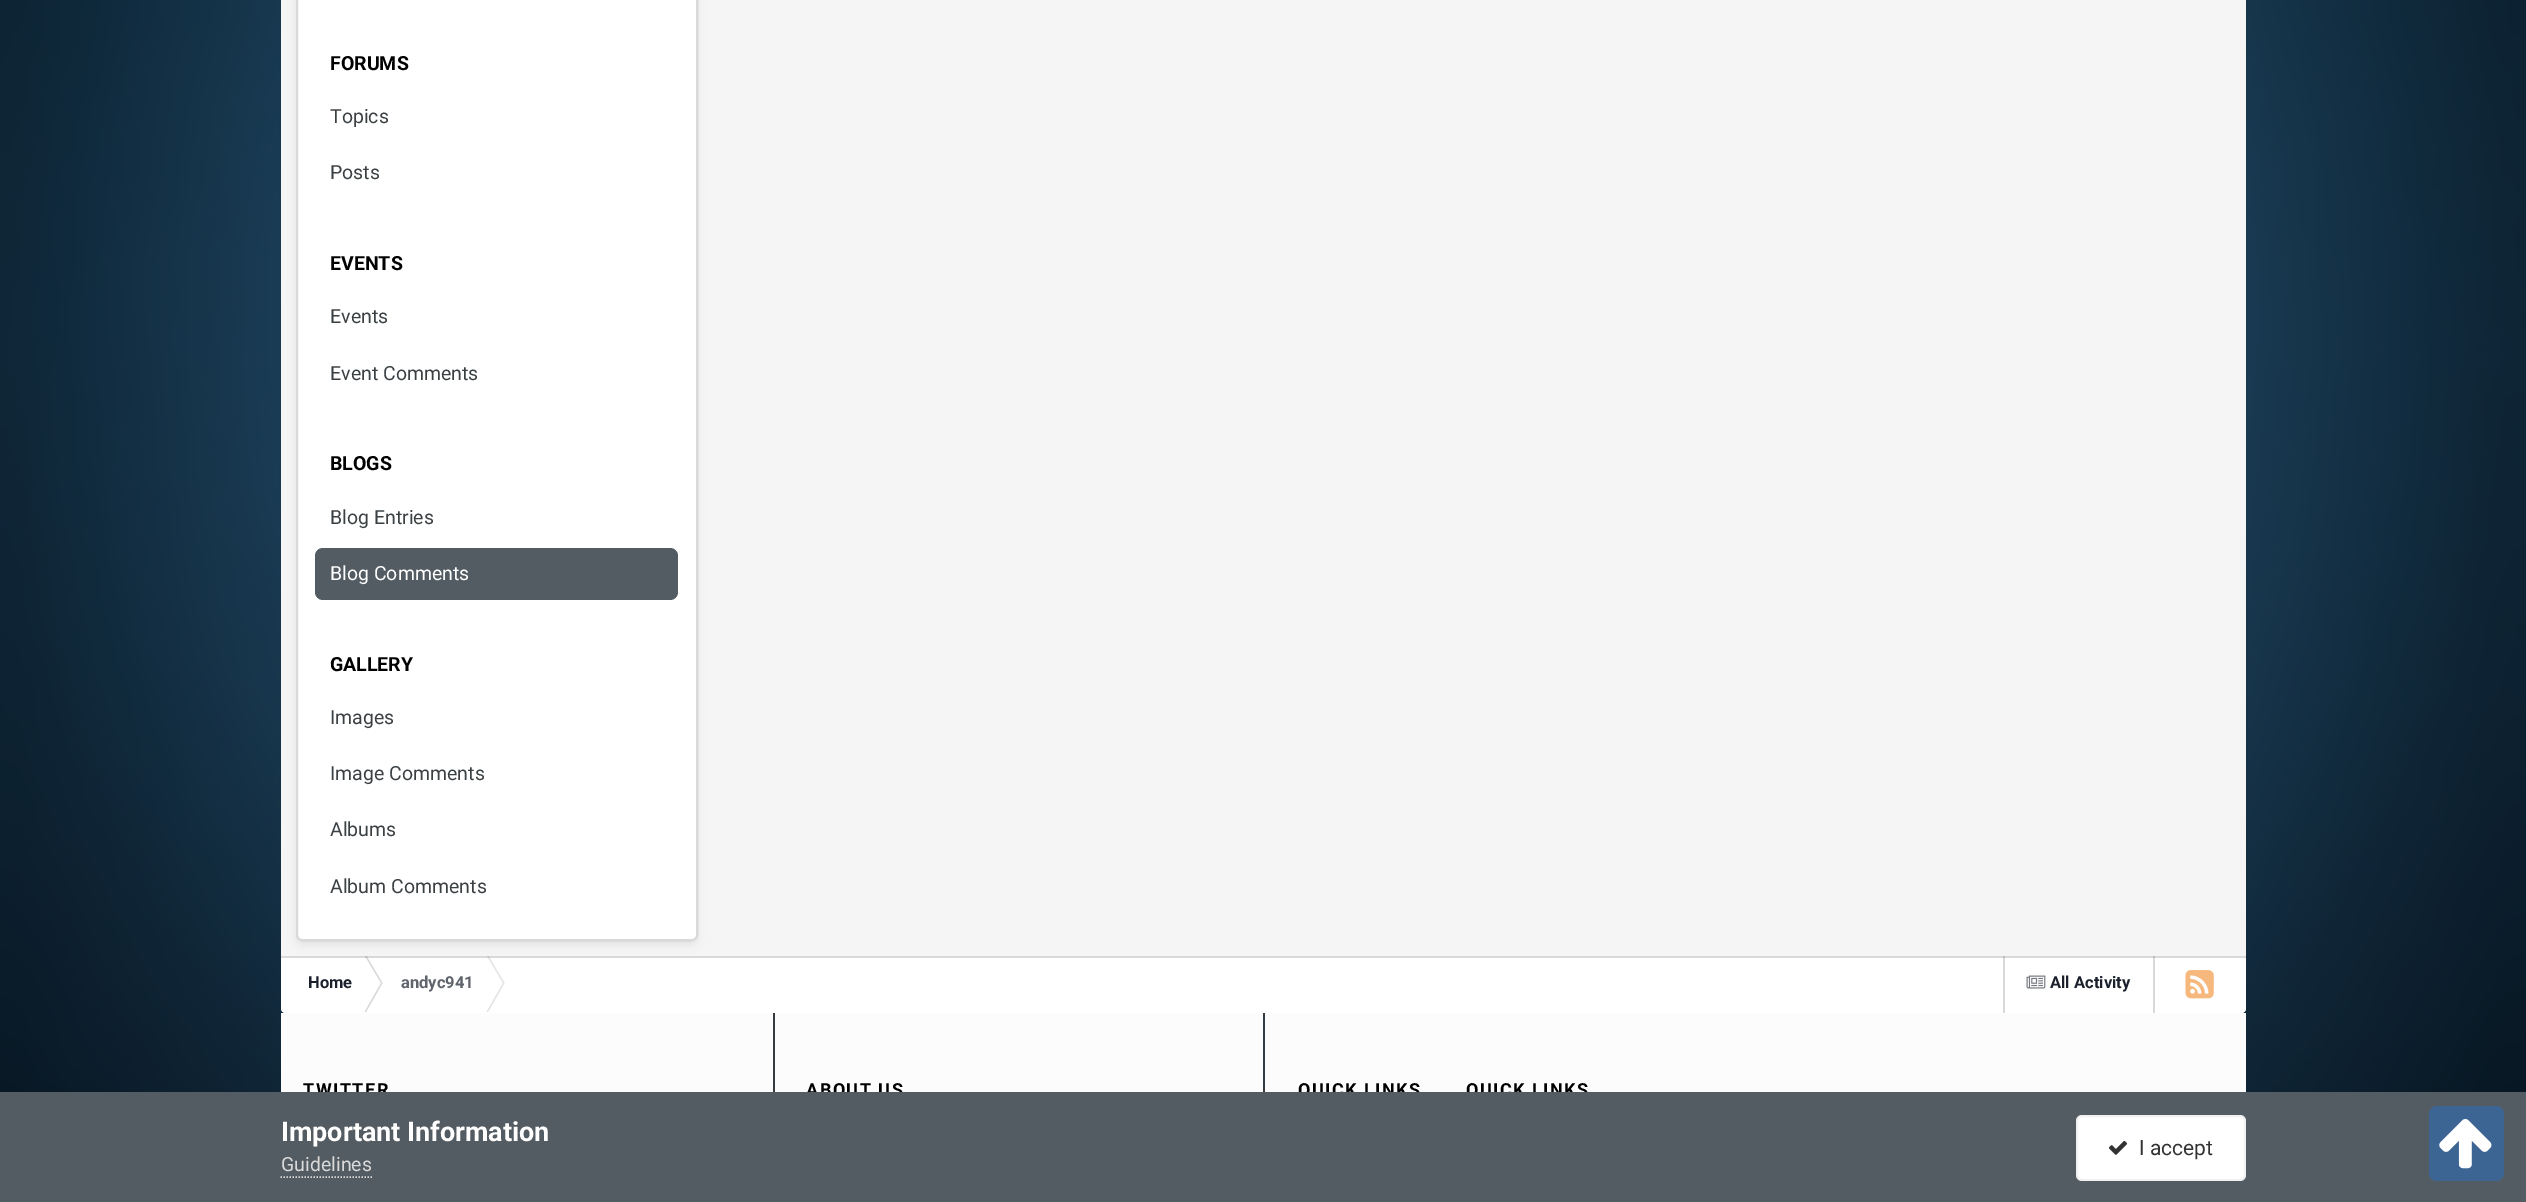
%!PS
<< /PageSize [2526 1202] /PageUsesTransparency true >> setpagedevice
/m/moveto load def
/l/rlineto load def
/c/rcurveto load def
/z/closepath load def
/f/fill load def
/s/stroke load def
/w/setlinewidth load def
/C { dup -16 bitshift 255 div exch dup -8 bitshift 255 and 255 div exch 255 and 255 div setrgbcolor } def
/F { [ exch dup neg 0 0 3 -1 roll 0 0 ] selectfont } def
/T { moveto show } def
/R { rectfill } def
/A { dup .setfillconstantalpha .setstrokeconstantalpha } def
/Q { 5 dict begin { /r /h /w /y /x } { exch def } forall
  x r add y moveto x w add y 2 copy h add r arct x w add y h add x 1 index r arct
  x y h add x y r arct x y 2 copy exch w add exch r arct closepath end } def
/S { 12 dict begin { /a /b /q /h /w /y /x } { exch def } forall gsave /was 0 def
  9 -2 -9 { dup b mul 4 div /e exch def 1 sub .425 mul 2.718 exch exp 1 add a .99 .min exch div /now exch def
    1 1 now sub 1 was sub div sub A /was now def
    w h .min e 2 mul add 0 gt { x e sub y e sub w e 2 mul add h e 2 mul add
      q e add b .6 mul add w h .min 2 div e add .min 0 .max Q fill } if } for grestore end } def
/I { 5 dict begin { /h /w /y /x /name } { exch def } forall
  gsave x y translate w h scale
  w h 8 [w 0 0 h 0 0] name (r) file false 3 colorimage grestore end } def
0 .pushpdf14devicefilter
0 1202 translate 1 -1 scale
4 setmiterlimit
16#FFFFFF C
0 0 2526 1202 R
(1.rgb) 0 0 2526 1092 I
16#000000 C
281 -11 1965 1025 5 2 .08 S
16#F5F5F5 C
281 -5 m 1965 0 l 0 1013 l 0 3 -2 5 -5 5 c -1955 0 l -3 0 -5 -2 -5 -5 c z f
16#000000 C
297 -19 399 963 5 4.5 .08 S
16#FFFFFF C
296 -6 402 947 6 Q f
0.2 A
16#3B4043 C
2 w
297 -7 400 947 5 Q s
/Roboto-Bold 19.5 F
1 A
16#000000 C
(FORUMS) 330 70 T
/Roboto-Regular 19.5 F
16#3B4043 C
(Topics) 330 123 T
(Posts) 330 179 T
/Roboto-Bold 19.5 F
16#000000 C
(EVENTS) 330 270 T
/Roboto-Regular 19.5 F
16#3B4043 C
(Events) 330 323 T
(Event Comments) 330 380 T
/Roboto-Bold 19.5 F
16#000000 C
(BLOGS) 330 470 T
/Roboto-Regular 19.5 F
16#3B4043 C
(Blog Entries) 330 524 T
16#535C62 C
315 548 363 52 8 Q f
16#FFFFFF C
(Blog Comments) 330 580 T
/Roboto-Bold 19.5 F
16#000000 C
(GALLERY) 330 671 T
/Roboto-Regular 19.5 F
16#3B4043 C
(Images) 330 724 T
(Image Comments) 330 780 T
(Albums) 330 836 T
(Album Comments) 330 893 T
16#FFFFFF C
281 956 m 1965 0 l 0 52 l 0 3 -2 5 -5 5 c -1955 0 l -3 0 -5 -2 -5 -5 c z f
16#D8D9D9 C
366.5 956 m -1.5 0 l 16 27 l 1.5 0 l z 364.5 1012 m 1.5 0 l 16.5 -29 l -1.5 0 l z f
16#E4E4E5 C
488.5 956 m -1.5 0 l 16 27 l 1.5 0 l z 486.5 1012 m 1.5 0 l 16.5 -29 l -1.5 0 l z f
16#D8D9D9 C
2003 956 2 57 R
2153 956 2 57 R
0.2 A
16#3B4043 C
281 956 1965 2 R
/Roboto-Bold 16.5 F
1 A
16#1A202C C
(Home) 308 988 T
16#5F636B C
(andyc941) 401 988 T
(2.rgb) 2026 975 20 14 I
16#1A202C C
(All Activity) 2050 988 T
(3.rgb) 2185 970 29 29 I
16#FCFCFC C
281 1013 1965 79 R
/Roboto-Bold 18 F
16#000000 C
303 1096 m 1.5 0 (TWITTER) ashow
16#353C41 C
773 1013 2 79 R
16#000000 C
806 1096 m 1.5 0 (ABOUT US) ashow
16#353C41 C
1263 1013 2 79 R
16#000000 C
1298 1096 m 1.5 0 (QUICK LINKS) ashow
1466 1096 m 1.5 0 (QUICK LINKS) ashow
16#535C62 C
0 1092 2526 110 R
/Roboto-Bold 27 F
16#FFFFFF C
(Important Information) 281 1141 T
/Roboto-Regular 19.5 F
16#DADADA C
(Guidelines) 281 1171 T
1.5 w
[1.5 1.5] 0 setdash
280.5 1177 m 91.5 0 l s
16#FFFFFF C
2076 1115 170 66 6 Q f
0.07 A
16#333333 C
2 w
[] 0 setdash
2077 1116 168 64 5 Q s
1 A
(4.rgb) 2108 1140 20 15 I
/Roboto-Regular 21 F
(I accept) 2139 1155 T
16#3D6594 C
2429 1106 75 75 8 Q f
(5.rgb) 2439 1119 53 50 I
.poppdf14devicefilter showpage
